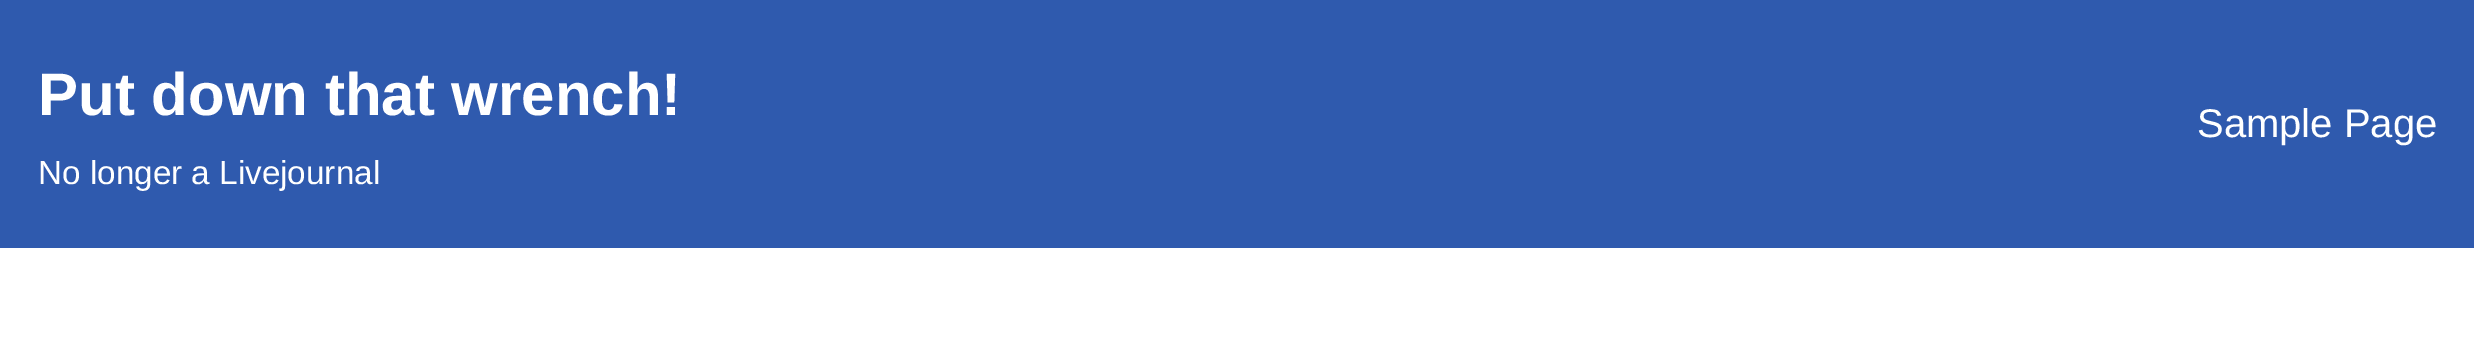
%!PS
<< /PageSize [2474 346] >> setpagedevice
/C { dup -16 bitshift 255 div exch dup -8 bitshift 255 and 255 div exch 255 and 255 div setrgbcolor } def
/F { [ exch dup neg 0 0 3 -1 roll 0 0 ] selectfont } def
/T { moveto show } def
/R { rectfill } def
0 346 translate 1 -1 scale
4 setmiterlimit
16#FFFFFF C
0 0 2474 346 R
16#2F5AAE C
0 0 2474 248 R
/LiberationSans-Bold 60 F
16#FFFFFF C
(Put down that wrench!) 38 115 T
/LiberationSans-Regular 33.25 F
(No longer a Livejournal) 38 184 T
/LiberationSans-Regular 40 F
(Sample Page) 2197 137 T
showpage
